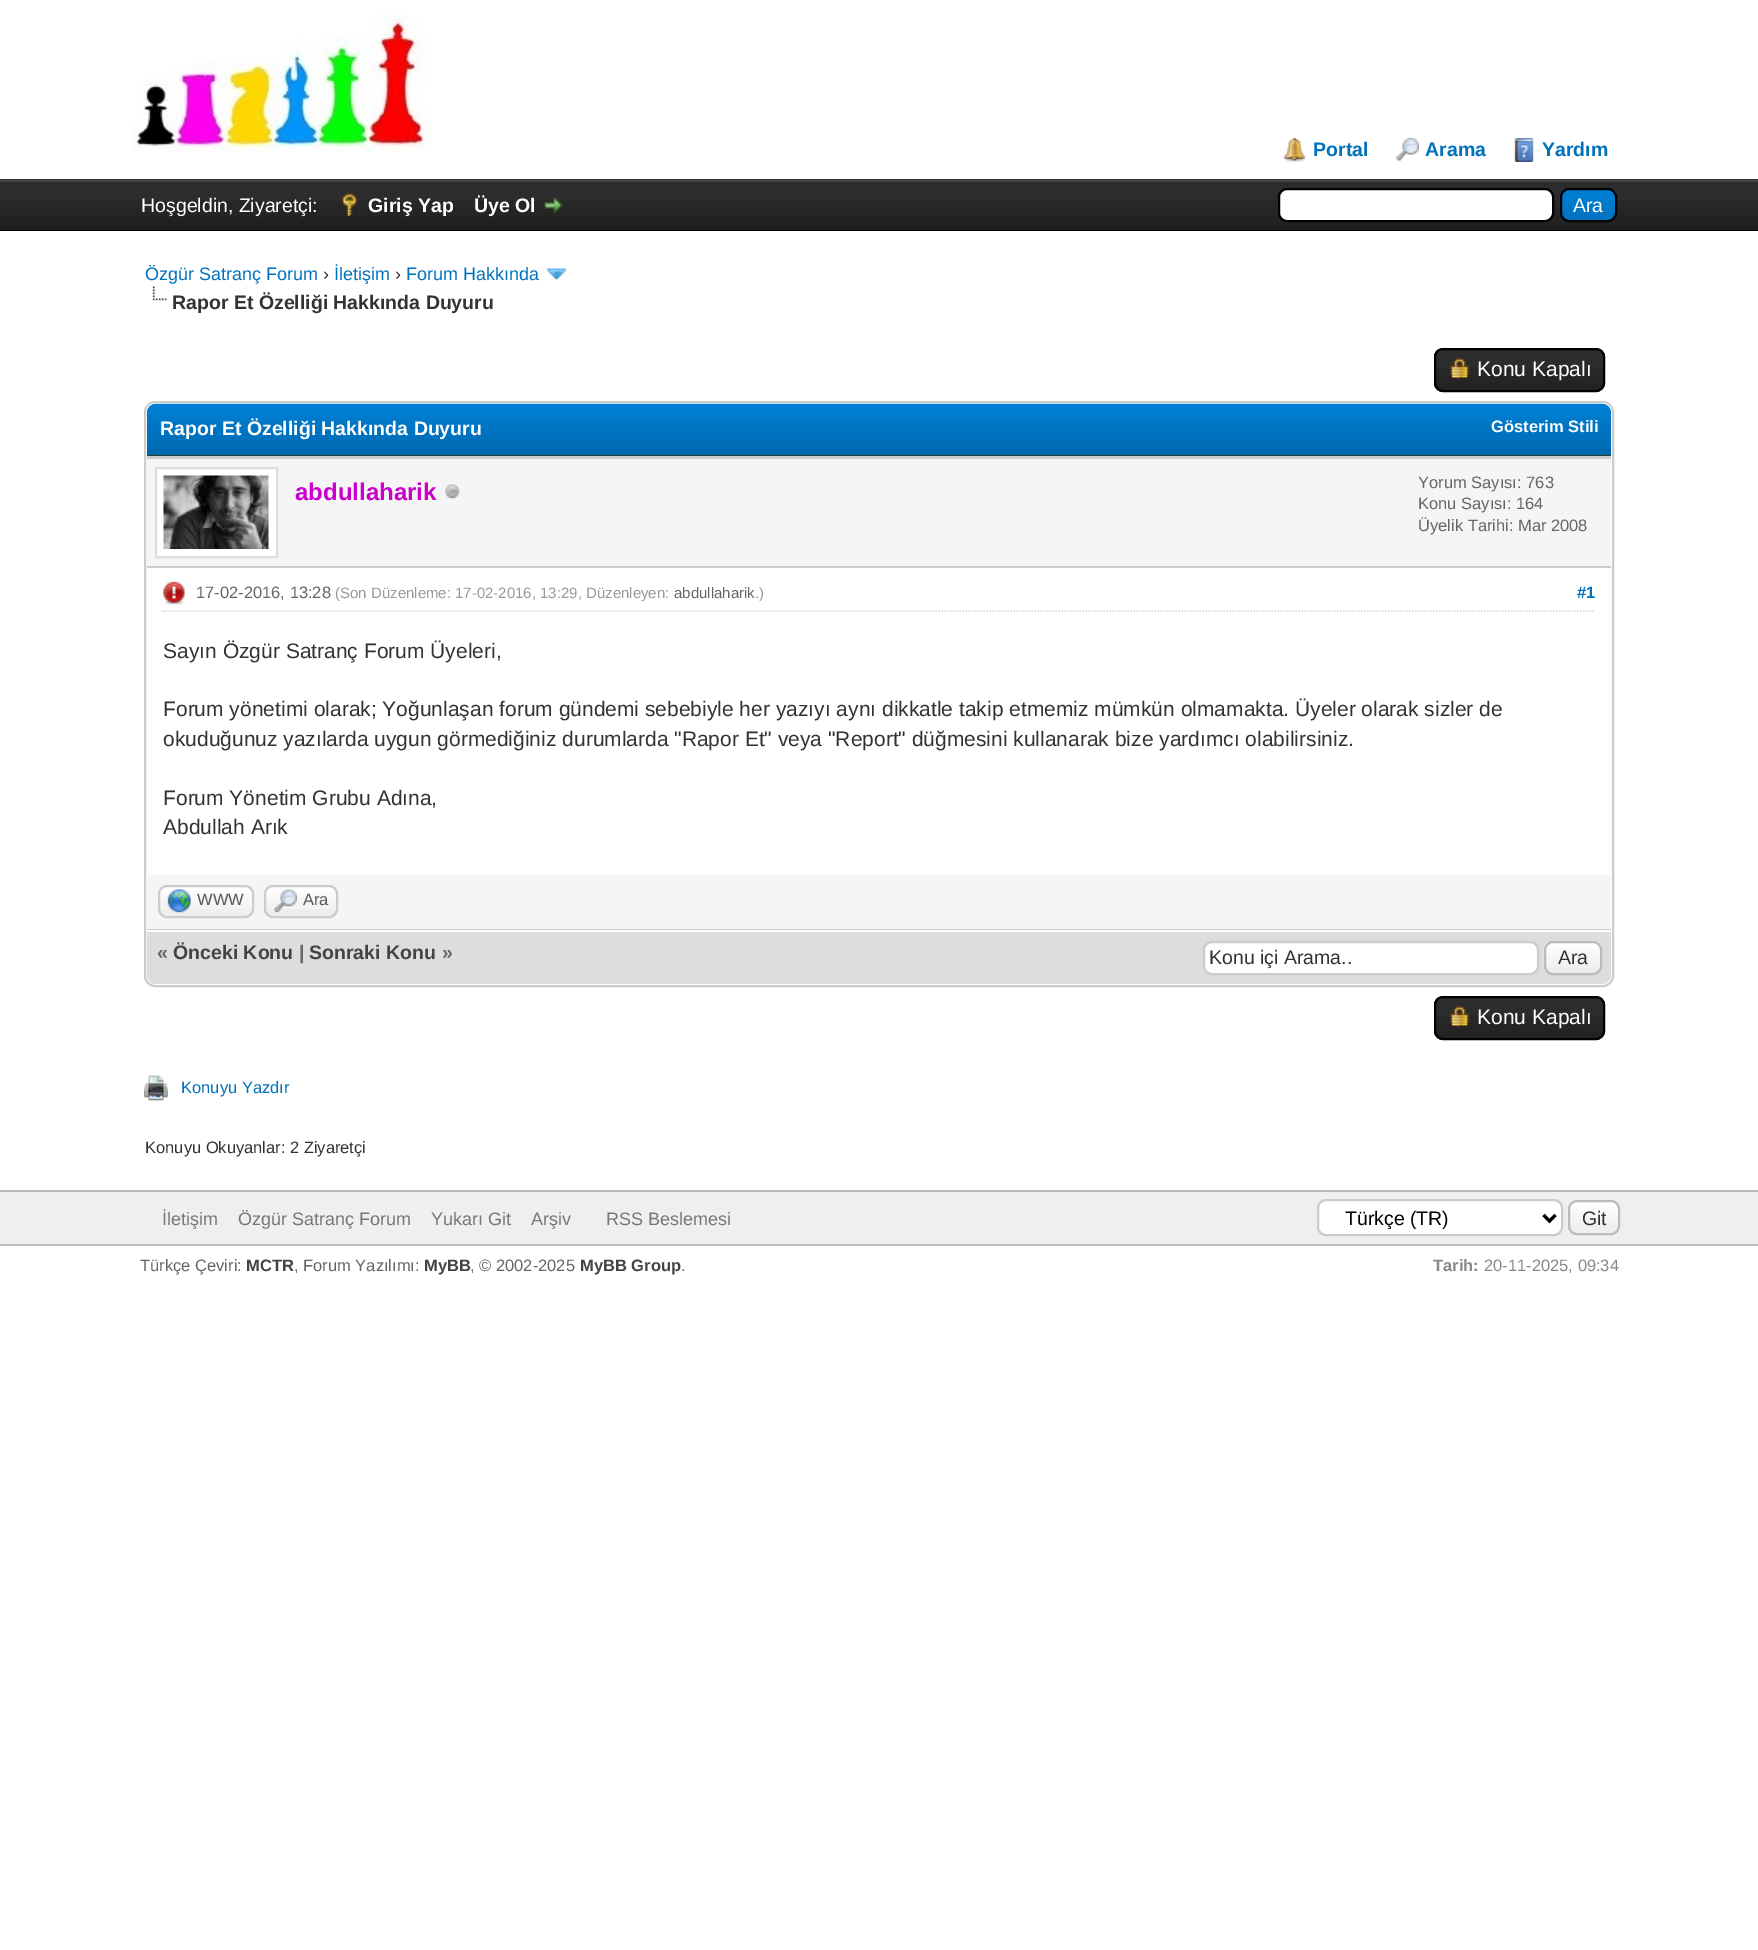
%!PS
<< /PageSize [1758 1950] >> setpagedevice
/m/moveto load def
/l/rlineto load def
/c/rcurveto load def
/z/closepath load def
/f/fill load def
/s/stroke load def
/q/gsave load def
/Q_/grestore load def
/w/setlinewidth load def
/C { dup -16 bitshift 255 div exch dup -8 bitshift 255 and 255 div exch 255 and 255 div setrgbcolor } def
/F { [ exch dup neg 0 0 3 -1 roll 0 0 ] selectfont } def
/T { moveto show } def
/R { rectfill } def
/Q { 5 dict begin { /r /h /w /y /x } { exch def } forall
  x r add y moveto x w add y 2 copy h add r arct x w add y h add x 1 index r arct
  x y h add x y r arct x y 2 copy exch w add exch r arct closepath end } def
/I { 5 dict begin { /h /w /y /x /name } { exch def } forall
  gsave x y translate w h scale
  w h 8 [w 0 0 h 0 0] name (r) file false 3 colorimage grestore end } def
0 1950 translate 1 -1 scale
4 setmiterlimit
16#FFFFFF C
0 0 1758 1950 R
16#263C30 C
0 179 1758 1 R
(1.rgb) 132 15 300 137 I
(2.rgb) 1283 138 23 24 I
/LiberationSans-Bold 19.5 F
16#0072BC C
(Portal) 1313 156 T
(3.rgb) 1396 138 23 23 I
(Arama) 1425 156 T
(4.rgb) 1514 138 20 24 I
(Yardım) 1542 156 T
(5.rgb) 0 182 1758 48 I
16#444444 C
0 180 1758 2 R
16#000000 C
0 230 1758 1 R
/LiberationSans-Regular 19.5 F
16#FFFFFF C
(Hoşgeldin, Ziyaretçi:) 141 212 T
(6.rgb) 341 193 17 23 I
/LiberationSans-Bold 19.5 F
(Giriş Yap) 368 212 T
(Üye Ol) 474 212 T
(7.rgb) 544 197 19 17 I
1279 189 274 32 8 Q q f Q_
16#000000 C
2 w
s
(8.rgb) 1560 189 57 33 I
1561 189 55 32 8 Q s
/LiberationSans-Regular 19.5 F
16#FFFFFF C
(Ara) 1573 212 T
/LiberationSans-Regular 18 F
16#0072BC C
(Özgür Satranç Forum) 145 280 T
16#333333 C
(›) 323 280 T
16#0072BC C
(İletişim) 334 280 T
16#333333 C
(›) 395 280 T
16#0072BC C
(Forum Hakkında) 406 280 T
(9.rgb) 546 268 22 12 I
(10.rgb) 152 286 15 15 I
/LiberationSans-Bold 19.5 F
16#333333 C
(Rapor Et Özelliği Hakkında Duyuru) 172 309 T
(11.rgb) 1434 349 171 43 I
16#000000 C
1435 349 169 42 8 Q s
(12.rgb) 1450 358 19 21 I
/LiberationSans-Regular 21 F
16#FFFFFF C
(Konu Kapalı) 1477 376 T
16#CCCCCC C
145 402 1468 584 10 Q s
(13.rgb) 147 403 1464 52 I
16#263C30 C
147 455 1464 1 R
/LiberationSans-Bold 19.5 F
16#FFFFFF C
(Rapor Et Özelliği Hakkında Duyuru) 160 435 T
/LiberationSans-Bold 16.5 F
(Gösterim Stili) 1491 432 T
16#F5F5F5 C
147 459 1464 107 R
16#CCCCCC C
147 456 1464 3 R
147 566 1464 2 R
16#FFFFFF C
156 468 m 121 0 l 0 89 l -121 0 l z q f Q_
16#DDDDDD C
s
(14.rgb) 163 475 106 74 I
/LiberationSans-Bold 24 F
16#CC00CC C
(abdullaharik) 295 500 T
(15.rgb) 445 484 15 15 I
/LiberationSans-Regular 16.5 F
16#666666 C
(Yorum Sayısı: 763) 1418 488 T
(Konu Sayısı: 164) 1418 509 T
(Üyelik Tarihi: Mar 2008) 1418 531 T
16#DDDDDD C
1.5 w
[1.5 1.5] 0 setdash
162 611 m 1434 0 l s
(16.rgb) 163 581 22 24 I
16#666666 C
(17-02-2016, 13:28) 196 598 T
/LiberationSans-Regular 15 F
16#999999 C
(\(Son Düzenleme: 17-02-2016, 13:29, Düzenleyen:) 335 598 T
16#666666 C
(abdullaharik) 674 598 T
16#999999 C
(.\)) 755 598 T
/LiberationSans-Bold 16.5 F
16#0072BC C
(#1) 1577 598 T
/LiberationSans-Regular 21 F
16#333333 C
(Sayın Özgür Satranç Forum Üyeleri,) 163 658 T
(Forum yönetimi olarak; Yoğunlaşan forum gündemi sebebiyle her yazıyı aynı dikkatle takip etmemiz mümkün olmamakta. Üyeler olarak sizler de) 163 716 T
(okuduğunuz yazılarda uygun görmediğiniz durumlarda "Rapor Et" veya "Report" düğmesini kullanarak bize yardımcı olabilirsiniz.) 163 746 T
(Forum Yönetim Grubu Adına,) 163 805 T
(Abdullah Arık) 163 834 T
16#F5F5F5 C
147 875 1464 54 R
16#CCCCCC C
147 929 1464 1 R
(17.rgb) 158 886 95 30 I
2 w
[] 0 setdash
159 886 94 31 8 Q s
(18.rgb) 167 889 24 24 I
/LiberationSans-Regular 16.5 F
16#555555 C
(WWW) 197 905 T
16#EEEEEE C
264 885 74 33 9 Q f
(19.rgb) 264 886 73 23 I
16#CCCCCC C
265 886 72 31 8 Q s
(20.rgb) 274 889 23 24 I
16#555555 C
(Ara) 303 905 T
16#DDDDDD C
147 930 m 1464 0 l 0 45 l 0 5 -4 9 -9 9 c -1446 0 l -5 0 -9 -4 -9 -9 c z f
16#FFFFFF C
147 930 1464 2 R
/LiberationSans-Bold 19.5 F
16#666666 C
(«) 157 959 T
16#444444 C
(Önceki Konu) 173 959 T
16#666666 C
(|) 299 959 T
16#444444 C
(Sonraki Konu) 309 959 T
16#666666 C
(») 442 959 T
16#FFFFFF C
1204 942 334 32 8 Q q f Q_
16#CCCCCC C
s
/LiberationSans-Regular 19.5 F
16#333333 C
(Konu içi Arama..) 1209 964 T
(21.rgb) 1543 942 59 31 I
16#BBBBBB C
1545 942 56 32 8 Q s
16#333333 C
(Ara) 1558 964 T
(11.rgb) 1434 997 171 43 I
16#000000 C
1435 997 169 42 8 Q s
(12.rgb) 1450 1006 19 21 I
/LiberationSans-Regular 21 F
16#FFFFFF C
(Konu Kapalı) 1477 1024 T
(22.rgb) 144 1075 24 26 I
/LiberationSans-Regular 16.5 F
16#0072BC C
(Konuyu Yazdır) 181 1093 T
16#333333 C
(Konuyu Okuyanlar: 2 Ziyaretçi) 145 1153 T
16#EFEFEF C
0 1192 1758 52 R
16#BBBBBB C
0 1190 1758 2 R
0 1244 1758 2 R
/LiberationSans-Regular 18 F
16#777777 C
(İletişim) 162 1225 T
(Özgür Satranç Forum) 238 1225 T
(Yukarı Git) 431 1225 T
(Arşiv) 531 1225 T
(RSS Beslemesi) 606 1225 T
16#FFFFFF C
1318 1200 244 35 8 Q q f Q_
16#CCCCCC C
s
16#000000 C
3 w
1543.5 1215 m 6 6 l 6 -6 l s
/LiberationSans-Regular 19.5 F
(Türkçe \(TR\)) 1345 1225 T
(23.rgb) 1568 1201 52 22 I
16#BBBBBB C
2 w
1569 1201 50 33 8 Q s
16#333333 C
(Git) 1582 1225 T
/LiberationSans-Regular 16.5 F
16#666666 C
(Türkçe Çeviri:) 140 1271 T
/LiberationSans-Bold 16.5 F
16#444444 C
(MCTR) 246 1271 T
/LiberationSans-Regular 16.5 F
16#666666 C
(, Forum Yazılımı:) 294 1271 T
/LiberationSans-Bold 16.5 F
16#444444 C
(MyBB) 424 1271 T
/LiberationSans-Regular 16.5 F
16#666666 C
(, © 2002-2025) 470 1271 T
/LiberationSans-Bold 16.5 F
16#444444 C
(MyBB Group) 580 1271 T
/LiberationSans-Regular 16.5 F
16#666666 C
(.) 681 1271 T
/LiberationSans-Bold 16.5 F
16#888888 C
(Tarih:) 1433 1271 T
/LiberationSans-Regular 16.5 F
(20-11-2025, 09:34) 1484 1271 T
showpage
